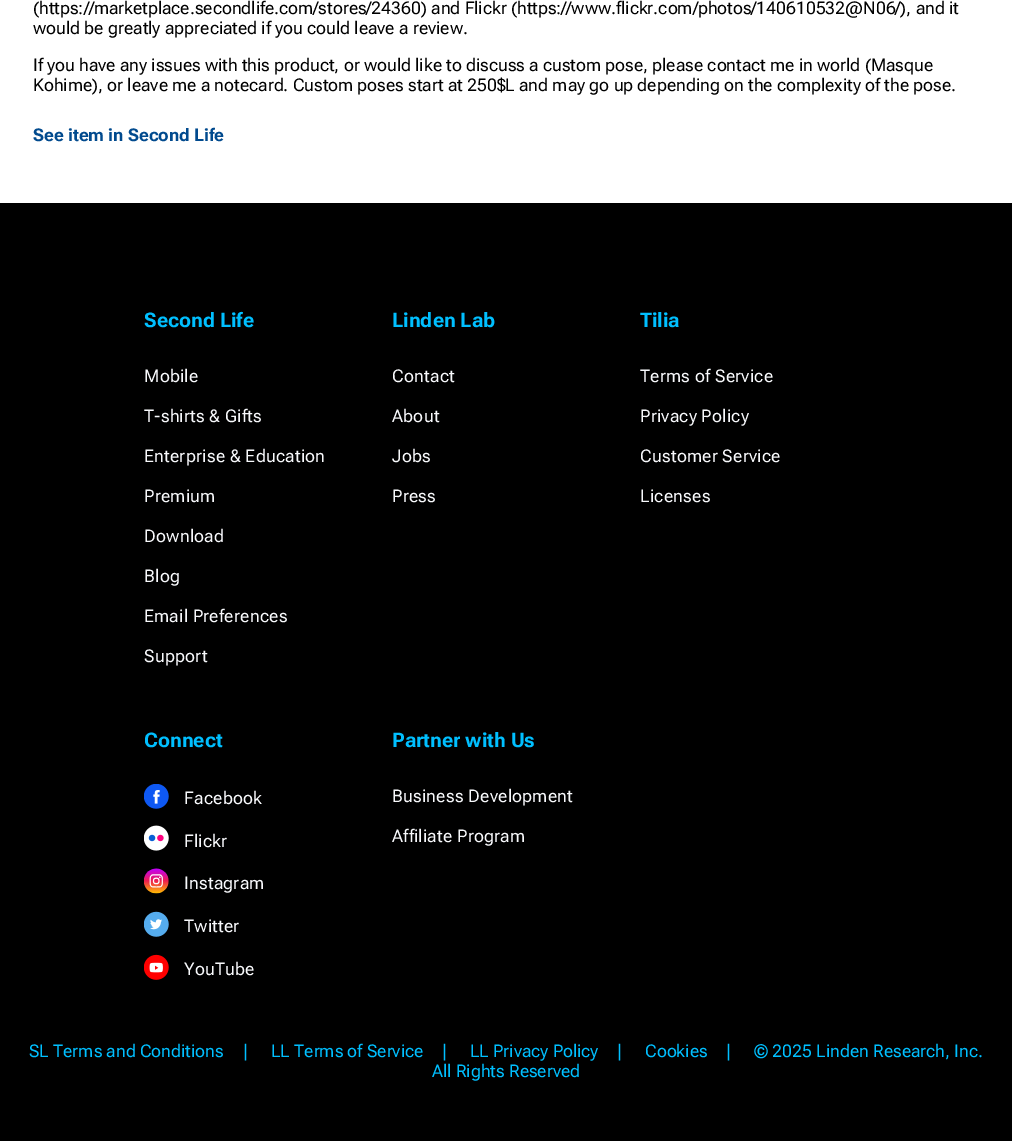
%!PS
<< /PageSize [1012 1141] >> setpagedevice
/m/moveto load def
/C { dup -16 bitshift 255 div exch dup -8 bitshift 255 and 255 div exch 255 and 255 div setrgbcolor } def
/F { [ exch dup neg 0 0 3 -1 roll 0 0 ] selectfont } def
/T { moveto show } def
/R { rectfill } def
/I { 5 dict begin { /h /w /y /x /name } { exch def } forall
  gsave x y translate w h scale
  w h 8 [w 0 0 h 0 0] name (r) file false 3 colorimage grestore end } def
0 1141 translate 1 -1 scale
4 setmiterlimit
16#FFFFFF C
0 0 1012 1141 R
/RobotoFlex-Regular 17.5 F
16#000000 C
(\(https://marketplace.secondlife.com/stores/24360\) and Flickr \(https://www.flickr.com/photos/140610532@N06/\), and it) 33 14 T
(would be greatly appreciated if you could leave a review.) 33 34 T
(If you have any issues with this product, or would like to discuss a custom pose, please contact me in world \(Masque) 33 71 T
(Kohime\), or leave me a notecard. Custom poses start at 250$L and may go up depending on the complexity of the pose.) 33 91 T
/RobotoFlex-Bold 17.5 F
16#014A8E C
(See item in Second Life) 33 141 T
16#000000 C
0 203 1012 938 R
/RobotoFlex-Bold 20 F
16#00BFFF C
(Second Life) 144 327 T
/RobotoFlex-Regular 17.5 F
16#F8F9FC C
144 382 m .25 0 (Mobile) ashow
144 422 m .25 0 (T-shirts & Gifts) ashow
144 462 m .25 0 (Enterprise & Education) ashow
144 502 m .25 0 (Premium) ashow
144 542 m .25 0 (Download) ashow
144 582 m .25 0 (Blog) ashow
144 622 m .25 0 (Email Preferences) ashow
144 662 m .25 0 (Support) ashow
/RobotoFlex-Bold 20 F
16#00BFFF C
(Linden Lab) 392 327 T
/RobotoFlex-Regular 17.5 F
16#F8F9FC C
392 382 m .25 0 (Contact) ashow
392 422 m .25 0 (About) ashow
392 462 m .25 0 (Jobs) ashow
392 502 m .25 0 (Press) ashow
/RobotoFlex-Bold 20 F
16#00BFFF C
(Tilia) 640 327 T
/RobotoFlex-Regular 17.5 F
16#F8F9FC C
640 382 m .25 0 (Terms of Service) ashow
640 422 m .25 0 (Privacy Policy) ashow
640 462 m .25 0 (Customer Service) ashow
640 502 m .25 0 (Licenses) ashow
/RobotoFlex-Bold 20 F
16#00BFFF C
(Connect) 144 747 T
(1.rgb) 144 784 25 25 I
/RobotoFlex-Regular 17.5 F
16#F8F9FC C
184 804 m .25 0 (Facebook) ashow
(2.rgb) 144 825 25 26 I
184 847 m .25 0 (Flickr) ashow
(3.rgb) 144 868 25 26 I
184 889 m .25 0 (Instagram) ashow
(4.rgb) 144 911 25 26 I
184 932 m .25 0 (Twitter) ashow
(5.rgb) 144 954 25 26 I
184 975 m .25 0 (YouTube) ashow
/RobotoFlex-Bold 20 F
16#00BFFF C
(Partner with Us) 392 747 T
/RobotoFlex-Regular 17.5 F
16#F8F9FC C
392 802 m .25 0 (Business Development) ashow
392 842 m .25 0 (Affiliate Program) ashow
16#00BFFF C
(SL Terms and Conditions) 29 1057 T
(|) 243 1057 T
(LL Terms of Service) 271 1057 T
(|) 442 1057 T
(LL Privacy Policy) 470 1057 T
(|) 617 1057 T
(Cookies) 645 1057 T
(|) 726 1057 T
(© 2025 Linden Research, Inc.) 754 1057 T
(All Rights Reserved) 432 1077 T
showpage
